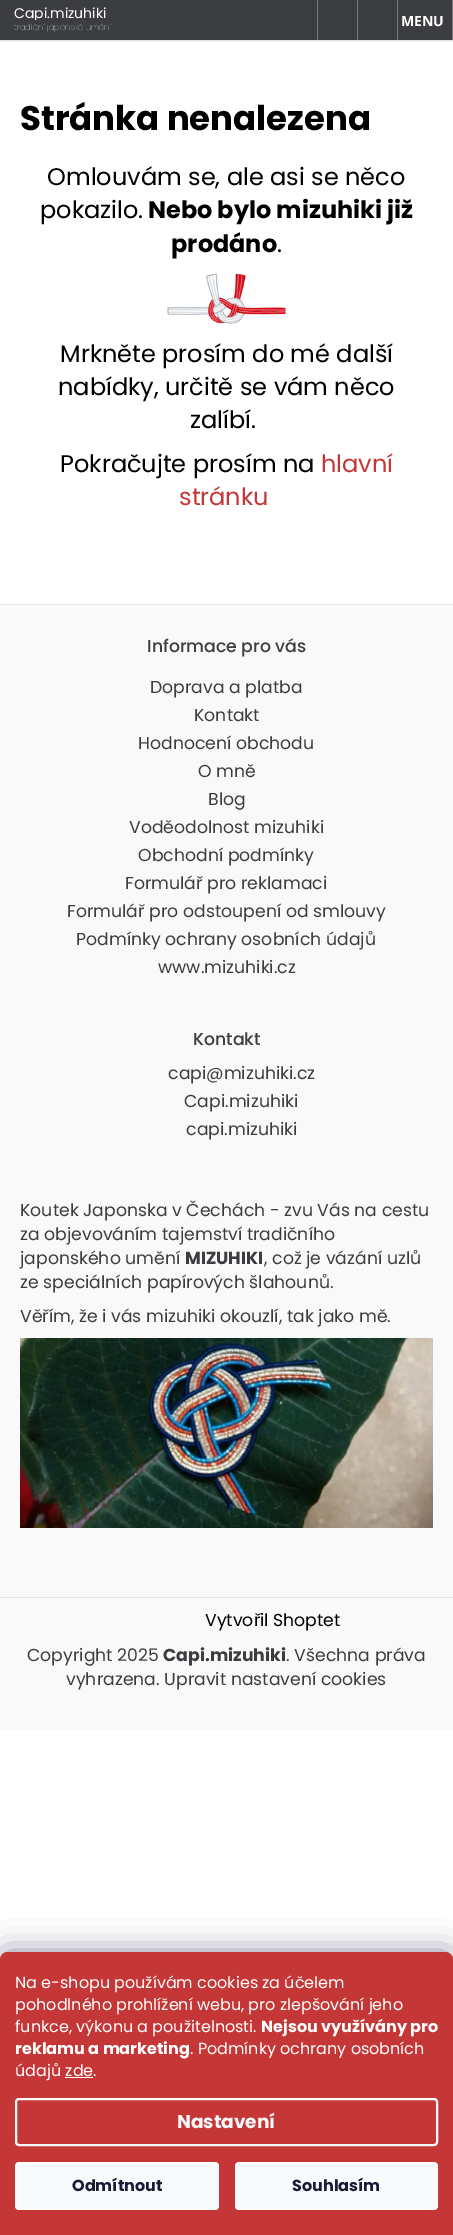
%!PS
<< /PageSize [453 2235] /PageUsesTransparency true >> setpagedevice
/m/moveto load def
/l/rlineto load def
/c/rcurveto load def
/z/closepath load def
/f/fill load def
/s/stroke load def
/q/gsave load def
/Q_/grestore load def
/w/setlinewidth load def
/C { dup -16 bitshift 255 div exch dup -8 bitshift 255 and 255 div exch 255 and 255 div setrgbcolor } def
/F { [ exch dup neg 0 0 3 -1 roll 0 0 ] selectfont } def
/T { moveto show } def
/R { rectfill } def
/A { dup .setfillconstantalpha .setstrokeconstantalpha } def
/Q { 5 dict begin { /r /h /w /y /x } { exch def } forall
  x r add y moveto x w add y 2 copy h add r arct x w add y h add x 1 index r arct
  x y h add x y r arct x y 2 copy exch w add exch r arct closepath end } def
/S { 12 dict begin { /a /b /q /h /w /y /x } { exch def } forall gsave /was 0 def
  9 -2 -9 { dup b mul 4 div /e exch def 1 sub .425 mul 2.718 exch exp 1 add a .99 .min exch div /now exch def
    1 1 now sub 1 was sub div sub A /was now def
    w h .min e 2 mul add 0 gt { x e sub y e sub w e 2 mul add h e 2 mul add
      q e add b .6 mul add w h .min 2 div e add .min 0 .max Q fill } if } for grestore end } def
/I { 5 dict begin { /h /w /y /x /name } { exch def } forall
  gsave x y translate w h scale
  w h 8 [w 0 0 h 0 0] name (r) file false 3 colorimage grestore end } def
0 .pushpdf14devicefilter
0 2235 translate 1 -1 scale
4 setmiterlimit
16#FFFFFF C
0 0 453 2235 R
16#000000 C
0 1 453 40 0 1 .16 S
16#3C3D41 C
0 0 452 40 R
q
14 6 97 14 rectclip
/Poppins-Regular 14 F
16#FFFFFF C
(Capi.mizuhiki) 14 18 T
Q_
/Poppins-Thin 8.4 F
16#FFFFFF C
(tradiční japonské umění) 14 30 T
16#77777A C
452 0 1 40 R
317 0 1 40 R
357 0 1 40 R
397 0 1 40 R
/OpenSans-Bold 14 F
16#FFFFFF C
(MENU) 401 26 T
/Poppins-Bold 34 F
16#000000 C
(Stránka nenalezena) 20 130 T
/Poppins-Regular 24 F
(Omlouvám se, ale asi se něco) 47 185 T
(pokazilo.) 40 218 T
/Poppins-Bold 24 F
(Nebo bylo mizuhiki již) 148 218 T
(prodáno) 171 252 T
/Poppins-Regular 24 F
(.) 277 252 T
(1.rgb) 167 273 119 51 I
(Mrkněte prosím do mé další) 60 362 T
(nabídky, určitě se vám něco) 58 395 T
(zalíbí.) 190 428 T
(Pokračujte prosím na) 60 472 T
16#C53736 C
(hlavní) 321 472 T
(stránku) 179 505 T
16#F9F9F9 C
0 605 453 1125 R
16#E6E6E6 C
0 604 453 1 R
/Poppins-Medium 17.3 F
16#3C3D41 C
(Informace pro vás) 147 652 T
/Poppins-Regular 17.3 F
(Doprava a platba) 150 693 T
(Kontakt) 194 721 T
(Hodnocení obchodu) 138 749 T
(O mně) 198 777 T
(Blog) 208 805 T
(Voděodolnost mizuhiki) 129 833 T
(Obchodní podmínky) 138 861 T
(Formulář pro reklamaci) 125 889 T
(Formulář pro odstoupení od smlouvy) 67 917 T
(Podmínky ochrany osobních údajů) 76 945 T
(www.mizuhiki.cz) 158 973 T
/Poppins-Medium 17.3 F
(Kontakt) 193 1045 T
/Poppins-Regular 17.3 F
(capi@mizuhiki.cz) 168 1079 T
(Capi.mizuhiki) 184 1107 T
(capi.mizuhiki) 186 1135 T
(Koutek Japonska v Čechách - zvu Vás na cestu) 20 1216 T
(za objevováním tajemství tradičního) 20 1240 T
(japonského umění) 20 1264 T
/Poppins-Bold 17.3 F
(MIZUHIKI) 185 1264 T
/Poppins-Regular 17.3 F
(, což je vázání uzlů) 264 1264 T
(ze speciálních papírových šlahounů.) 20 1288 T
(Věřím, že i vás mizuhiki okouzlí, tak jako mě.) 20 1322 T
(2.rgb) 20 1338 413 190 I
16#E6E6E6 C
0 1597 453 1 R
16#000000 C
(Vytvořil Shoptet) 205 1626 T
16#3C3D41 C
(Copyright 2025) 27 1661 T
/Poppins-Bold 17.3 F
(Capi.mizuhiki) 163 1661 T
/Poppins-Regular 17.3 F
(. Všechna práva) 286 1661 T
(vyhrazena. Upravit nastavení cookies) 66 1685 T
16#1B1939 C
0 1952 453 283 8 15 .5 S
16#C53736 C
8 1952 m 437 0 l 4.5 0 8 3.5 8 8 c 0 275 l -453 0 l 0 -275 l 0 -4.5 3.5 -8 8 -8 c z f
/Poppins-Regular 16 F
16#FFFFFF C
(Na e-shopu používám cookies za účelem) 15 1988 T
(pohodlného prohlížení webu, pro zlepšování jeho) 15 2010 T
(funkce, výkonu a použitelnosti.) 15 2032 T
/Poppins-Bold 16 F
(Nejsou využívány pro) 261 2032 T
(reklamu a marketing) 15 2054 T
/Poppins-Regular 16 F
(. Podmínky ochrany osobních) 190 2054 T
(údajů zde.) 15 2076 T
65 2077 28 1 R
16#F8FAFB C
2 w
16 2099 421 46 3 Q s
/Poppins-Bold 18.5 F
(Nastavení) 177 2128 T
15 2162 204 48 4 Q f
/Poppins-Bold 16 F
16#1A1937 C
(Odmítnout) 72 2191 T
16#F8FAFB C
235 2162 203 48 4 Q f
16#1A1937 C
(Souhlasím) 292 2191 T
.poppdf14devicefilter showpage
